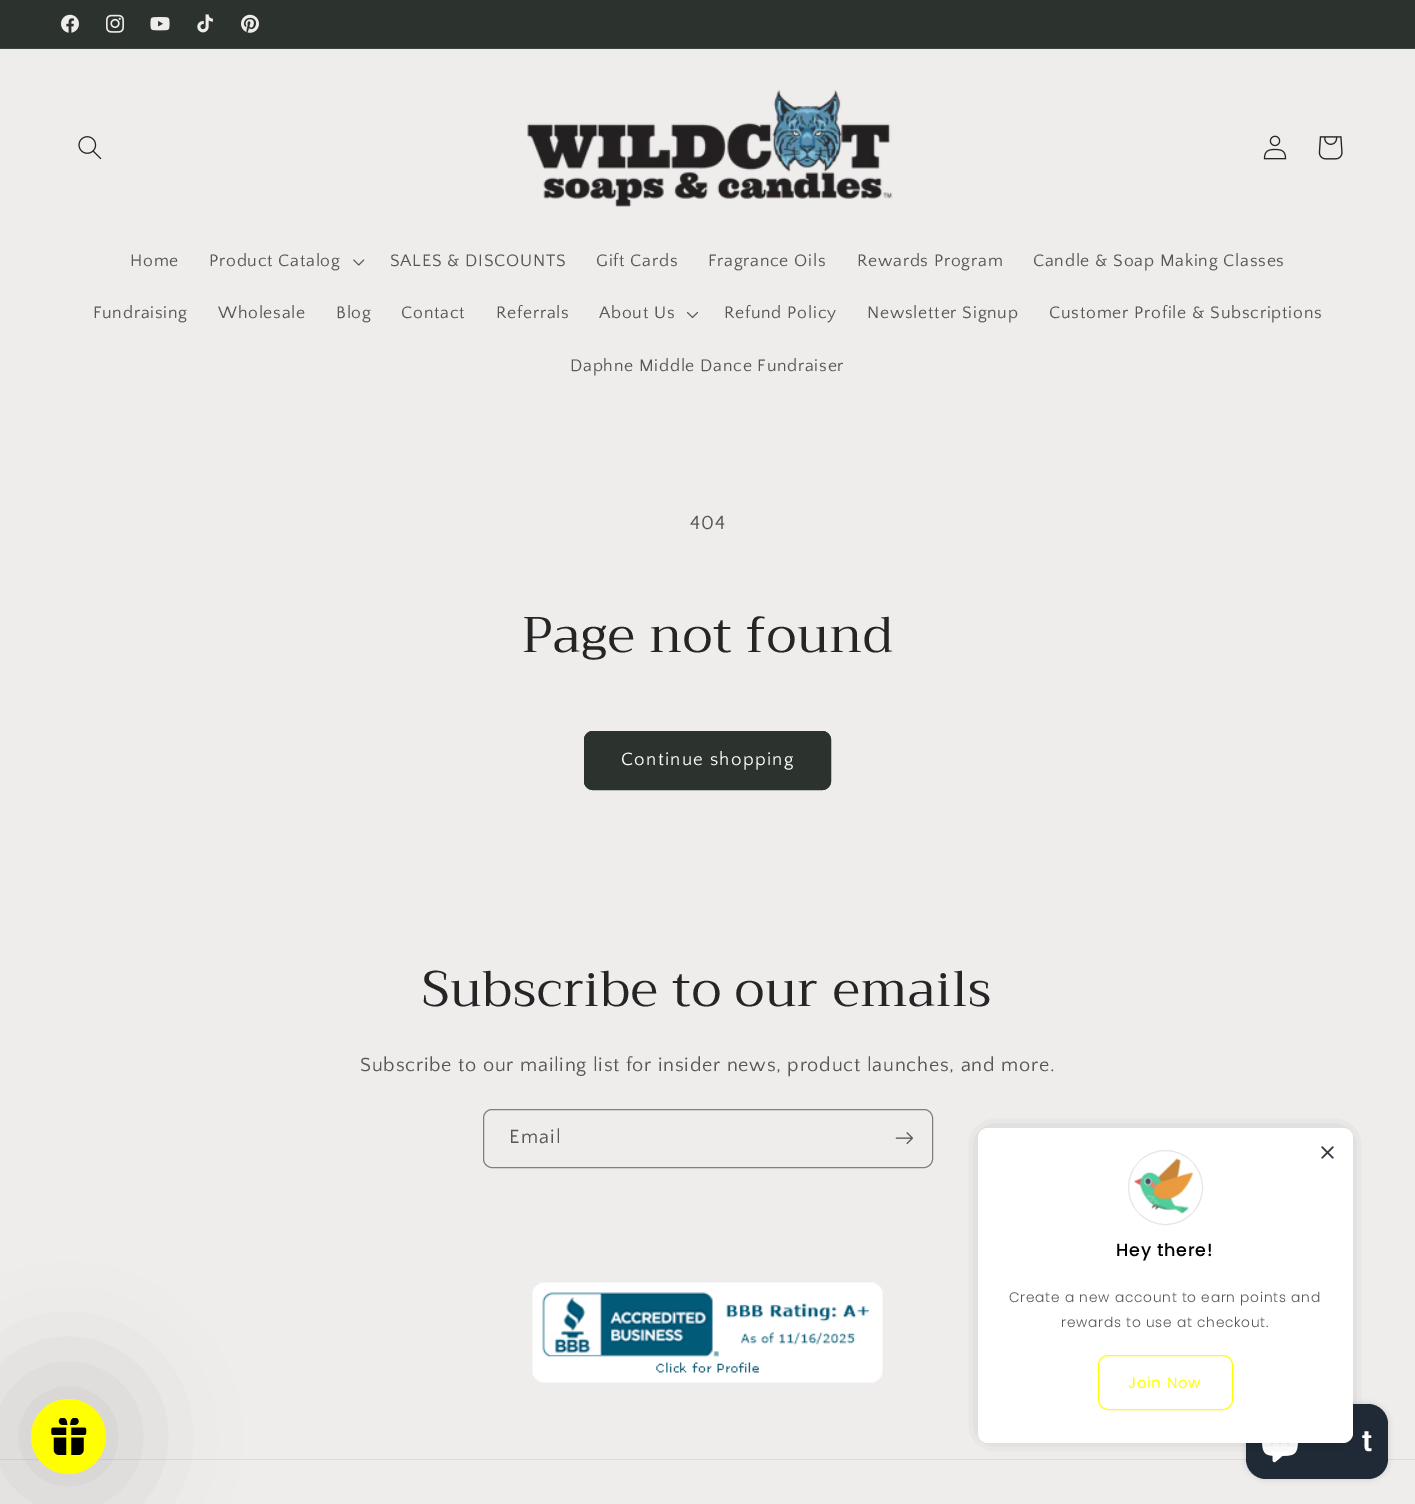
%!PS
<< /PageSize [1415 1504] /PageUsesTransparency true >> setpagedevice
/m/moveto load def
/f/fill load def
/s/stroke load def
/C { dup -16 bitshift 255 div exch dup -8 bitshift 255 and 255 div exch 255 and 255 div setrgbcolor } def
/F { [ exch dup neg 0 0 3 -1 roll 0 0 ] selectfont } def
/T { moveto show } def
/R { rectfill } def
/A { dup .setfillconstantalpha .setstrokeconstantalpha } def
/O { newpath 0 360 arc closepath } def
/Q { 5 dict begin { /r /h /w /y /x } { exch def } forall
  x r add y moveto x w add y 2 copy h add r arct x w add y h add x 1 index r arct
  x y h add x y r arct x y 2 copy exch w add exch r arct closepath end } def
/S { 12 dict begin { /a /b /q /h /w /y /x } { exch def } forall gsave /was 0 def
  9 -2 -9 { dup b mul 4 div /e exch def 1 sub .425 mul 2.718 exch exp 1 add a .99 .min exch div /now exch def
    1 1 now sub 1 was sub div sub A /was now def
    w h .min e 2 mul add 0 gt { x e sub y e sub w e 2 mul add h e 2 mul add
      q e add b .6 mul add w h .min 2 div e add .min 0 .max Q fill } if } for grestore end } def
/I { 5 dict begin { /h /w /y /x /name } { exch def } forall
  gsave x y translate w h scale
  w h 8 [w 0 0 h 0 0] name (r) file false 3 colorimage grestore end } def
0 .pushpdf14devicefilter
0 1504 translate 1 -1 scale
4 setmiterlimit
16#EFECEC C
0 0 1415 1504 R
16#2C332F C
0 0 1415 48 R
16#3C423E C
0 48 1415 1 R
(1.rgb) 61 14 18 19 I
(2.rgb) 106 14 18 19 I
(3.rgb) 150 17 20 14 I
(4.rgb) 197 14 16 19 I
(5.rgb) 241 14 18 19 I
(6.rgb) 78 136 24 24 I
(7.rgb) 527 90 366 117 I
(8.rgb) 1263 135 24 25 I
(9.rgb) 1318 136 25 24 I
/QuattrocentoSans-Regular 17.5 F
16#585757 C
130 266 m .75 0 (Home) ashow
209 266 m .75 0 (Product Catalog) ashow
(10.rgb) 353 259 12 7 I
390 266 m .75 0 (SALES & DISCOUNTS) ashow
596 266 m .75 0 (Gift Cards) ashow
708 266 m .75 0 (Fragrance Oils) ashow
857 266 m .75 0 (Rewards Program) ashow
1033 266 m .75 0 (Candle & Soap Making Classes) ashow
93 318 m .75 0 (Fundraising) ashow
218 318 m .75 0 (Wholesale) ashow
336 318 m .75 0 (Blog) ashow
401 318 m .75 0 (Contact) ashow
496 318 m .75 0 (Referrals) ashow
599 318 m .75 0 (About Us) ashow
(11.rgb) 686 311 13 8 I
724 318 m .75 0 (Refund Policy) ashow
867 318 m .75 0 (Newsletter Signup) ashow
1049 318 m .75 0 (Customer Profile & Subscriptions) ashow
570 371 m .75 0 (Daphne Middle Dance Fundraiser) ashow
/QuattrocentoSans-Regular 20 F
690 529 m .75 0 (404) ashow
/Trirong-Regular 50 F
16#252525 C
522 652 m .75 0 (Page not found) ashow
16#2C332F C
584 731 247 59 9 Q f
584.5 731.5 246 58 8.5 Q s
/QuattrocentoSans-Regular 18.75 F
16#FFFFFF C
621 765 m 1.25 0 (Continue shopping) ashow
/Trirong-Regular 50 F
16#252525 C
422 1006 m .75 0 (Subscribe to our emails) ashow
/QuattrocentoSans-Regular 20 F
16#585757 C
360 1071 m .75 0 (Subscribe to our mailing list for insider news, product launches, and more.) ashow
16#807F7F C
483.5 1109.5 449 58 8.5 Q s
16#585757 C
509 1143 m 1.25 0 (Email) ashow
(12.rgb) 895 1132 18 13 I
16#DFDCDC C
0 1459 1415 1 R
16#000000 C
6 1374 125 125 62.5 50 .12 S
16#FFFF00 C
68.5 1436.5 37.5 O f
(13.rgb) 51 1418 36 37 I
(14.rgb) 532 1282 351 101 I
16#000000 C
1246 1404 142 75 20 3 .15 S
16#202A36 C
1246 1404 142 75 20 Q f
(17.rgb) 1262 1443 36 20 I
16#000000 C
990 1140 350 290 0 9.5 .75 S
16#FFFFFF C
978 1128 375 315 10 Q f
16#E5E5E5 C
1165.5 1187.5 37 O s
(15.rgb) 1134 1158 60 56 I
(16.rgb) 1321 1146 13 13 I
/Poppins-Medium 17.5 F
16#000000 C
1116 1256 m .75 0 (Hey there!) ashow
/Poppins-Light 13.75 F
16#585757 C
1009 1302 m .75 0 (Create a new account to earn points and) ashow
1061 1327 m .75 0 (rewards to use at checkout.) ashow
16#FFFF00 C
1098.5 1355.5 134 54 9.5 Q s
/Poppins-Regular 15 F
1128 1388 m .75 0 (Join Now) ashow
/Roboto-SemiBold 30 F
16#FFFFFF C
(t) 1362 1451 T
.poppdf14devicefilter showpage
